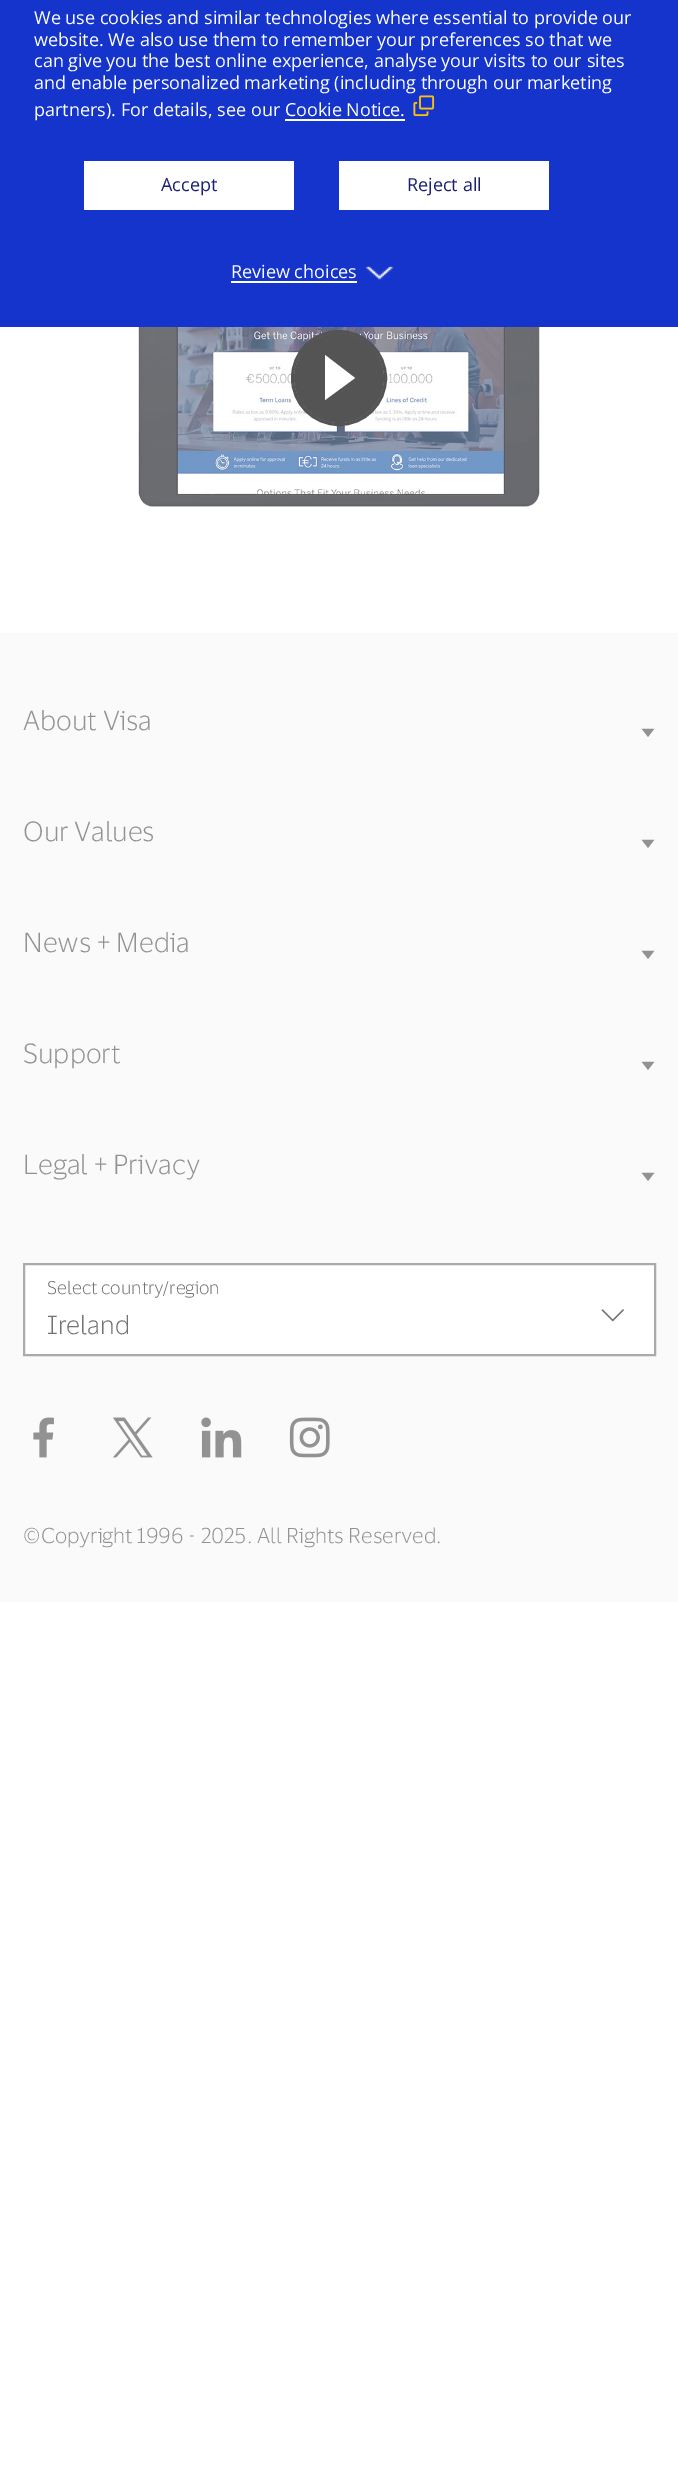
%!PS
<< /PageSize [678 2485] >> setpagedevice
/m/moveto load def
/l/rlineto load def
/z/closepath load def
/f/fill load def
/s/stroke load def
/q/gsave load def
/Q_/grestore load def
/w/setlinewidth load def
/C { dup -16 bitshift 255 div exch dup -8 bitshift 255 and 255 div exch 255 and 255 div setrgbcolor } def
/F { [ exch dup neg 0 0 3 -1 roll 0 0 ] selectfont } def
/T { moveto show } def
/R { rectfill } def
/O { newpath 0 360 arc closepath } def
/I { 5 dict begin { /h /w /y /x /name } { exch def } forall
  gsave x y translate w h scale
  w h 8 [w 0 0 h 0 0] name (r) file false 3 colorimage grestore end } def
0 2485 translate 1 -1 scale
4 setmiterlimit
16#FFFFFF C
0 0 678 2485 R
16#1434CB C
0 0 678 327 R
/OpenSans-Regular 18 F
16#FFFFFF C
(We use cookies and similar technologies where essential to provide our) 34 24 T
(website. We also use them to remember your preferences so that we) 34 46 T
(can give you the best online experience, analyse your visits to our sites) 34 67 T
(and enable personalized marketing \(including through our marketing) 34 89 T
(1.rgb) 413 95 22 22 I
285 119 120 2 R
(partners\). For details, see our Cookie Notice.) 34 116 T
84 161 210 49 R
16#1A1F72 C
(Accept) 161 191 T
16#FFFFFF C
339 161 210 49 R
16#1A1F72 C
(Reject all) 407 191 T
16#FFFFFF C
(Review choices) 231 278 T
231 281 126 2 R
(2.rgb) 365 266 29 14 I
(3.rgb) 138 327 402 180 I
16#545454 C
3 w
339 378 46.5 O s
339 378 44 O q f Q_
2 w
s
16#FFFFFF C
325 355 m 30 23 l -30 22 l z f
16#FAFAFA C
0 633 678 969 R
/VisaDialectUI-Light 27 F
16#929292 C
(About Visa) 23 730 T
(4.rgb) 641 728 14 9 I
(Our Values) 23 841 T
(4.rgb) 641 839 14 9 I
(News + Media) 23 952 T
(4.rgb) 641 950 14 9 I
(Support) 23 1063 T
(4.rgb) 641 1061 14 9 I
(Legal + Privacy) 23 1174 T
(4.rgb) 641 1172 14 9 I
16#FFFFFF C
24 1264 m 631 0 l 0 91 l -631 0 l z q f Q_
16#AAAAAA C
s
/VisaDialectUI-Light 18 F
16#727272 C
(Select country/region) 47 1294 T
/VisaDialectUI-Light 25.5 F
(Ireland) 47 1334 T
(5.rgb) 601 1309 23 13 I
(6.rgb) 33 1417 21 41 I
(7.rgb) 113 1417 40 41 I
(8.rgb) 201 1417 41 41 I
(9.rgb) 289 1417 41 41 I
/VisaDialectUI-Light 21 F
16#929292 C
(©Copyright 1996 - 2025. All Rights Reserved.) 23 1543 T
showpage
